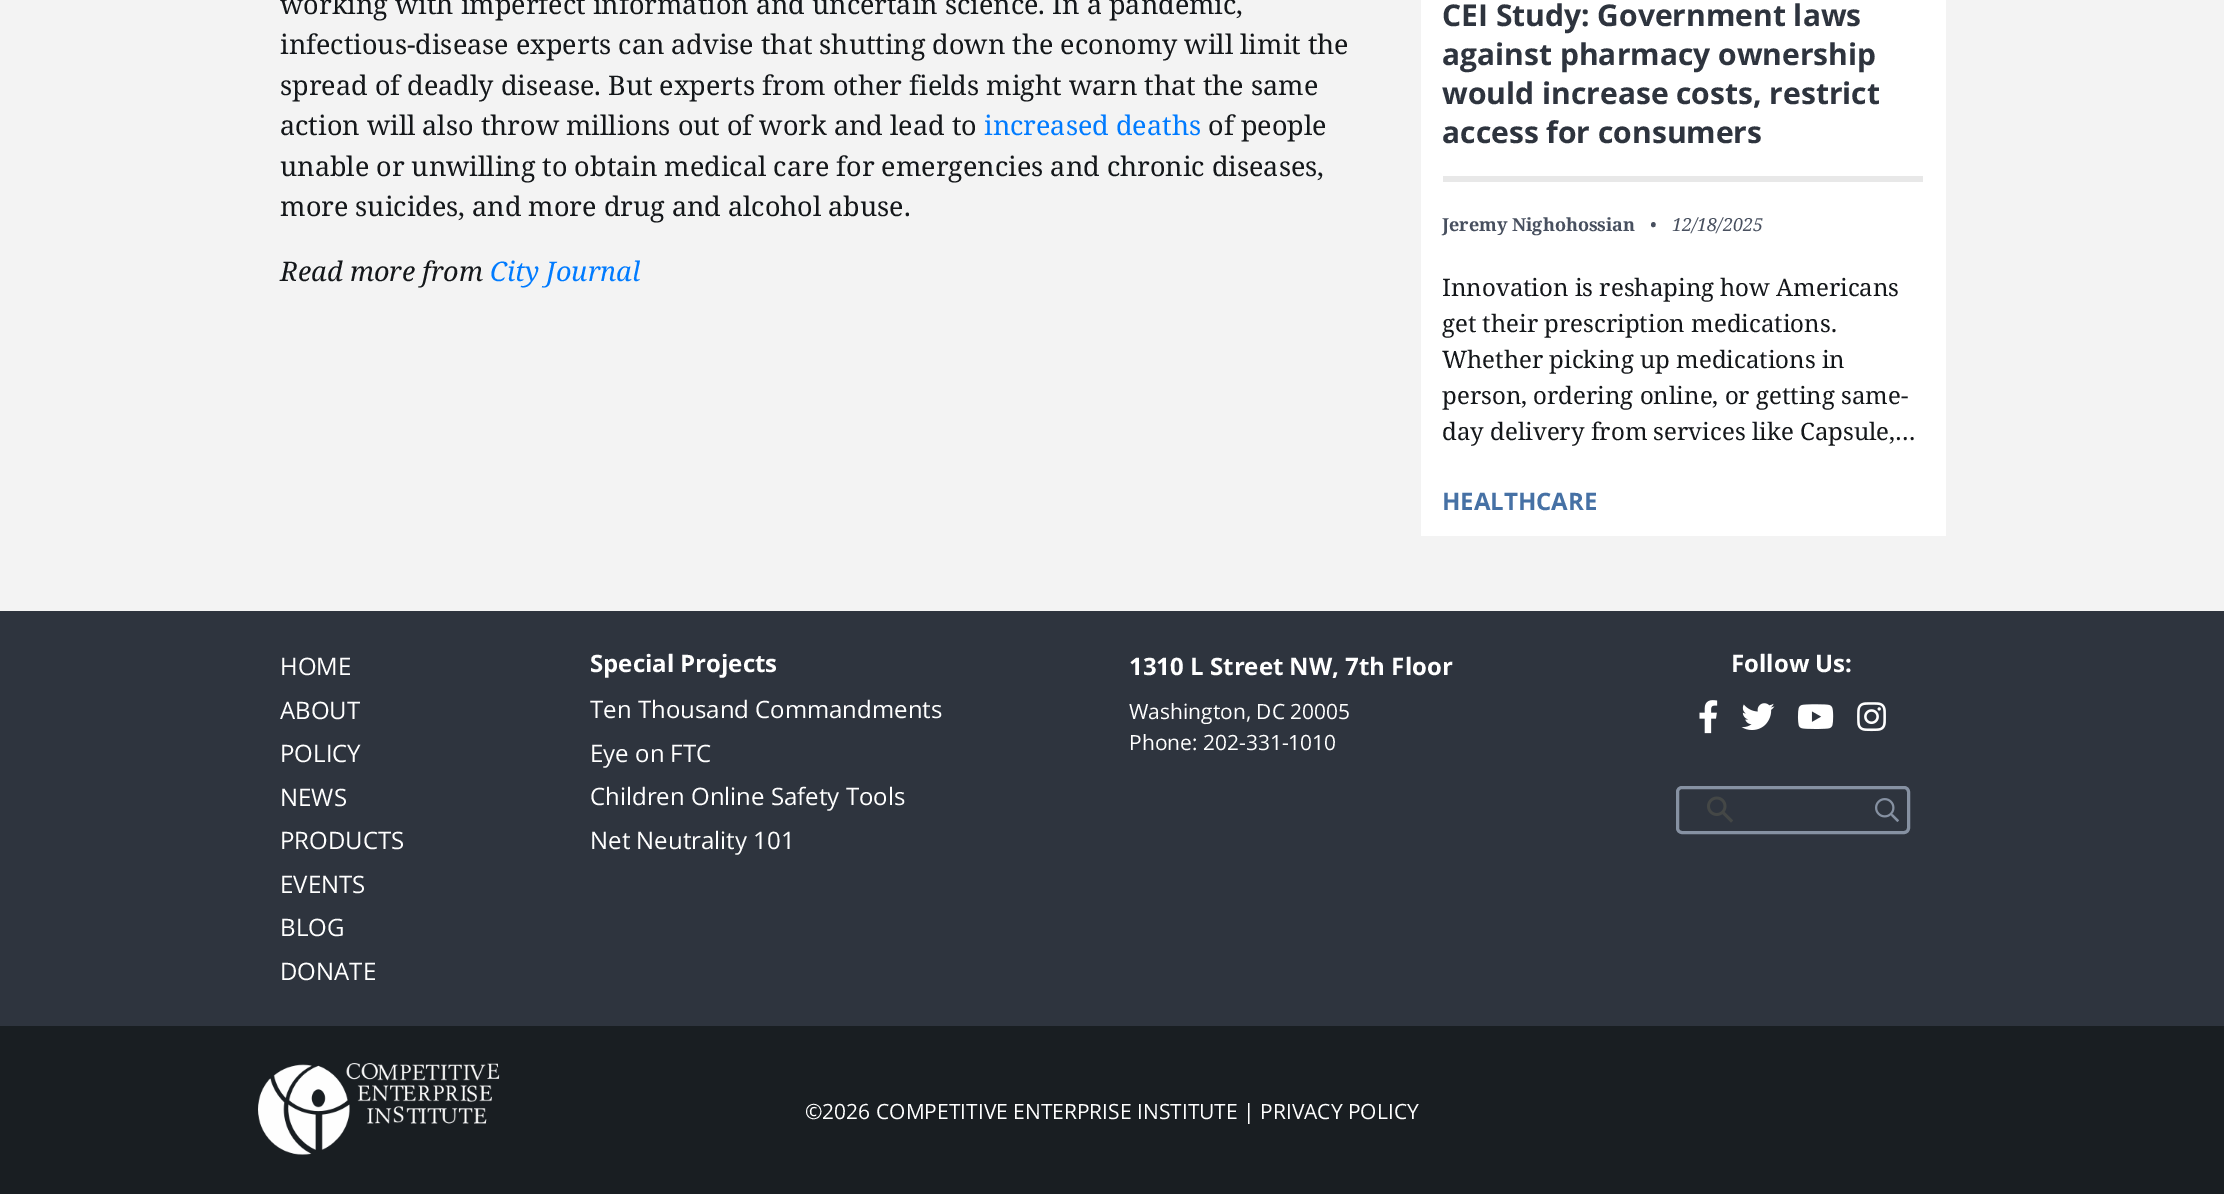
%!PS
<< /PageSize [2224 1194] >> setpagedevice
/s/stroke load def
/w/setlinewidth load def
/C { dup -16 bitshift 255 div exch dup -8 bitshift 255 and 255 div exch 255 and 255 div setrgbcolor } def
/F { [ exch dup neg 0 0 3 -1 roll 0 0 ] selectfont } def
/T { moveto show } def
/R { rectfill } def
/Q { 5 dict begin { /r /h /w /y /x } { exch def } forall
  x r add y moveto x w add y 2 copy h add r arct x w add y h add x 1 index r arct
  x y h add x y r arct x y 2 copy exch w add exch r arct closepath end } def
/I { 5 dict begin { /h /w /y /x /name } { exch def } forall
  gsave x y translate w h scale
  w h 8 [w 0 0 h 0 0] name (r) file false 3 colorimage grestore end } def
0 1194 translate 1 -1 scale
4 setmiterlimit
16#F3F3F3 C
0 0 2224 1194 R
/NotoSerif-Regular 27 F
16#14171A C
(working with imperfect information and uncertain science. In a pandemic,) 280 14 T
(infectious-disease experts can advise that shutting down the economy will limit the) 280 54 T
(spread of deadly disease. But experts from other fields might warn that the same) 280 95 T
(action will also throw millions out of work and lead to) 280 135 T
16#007BFF C
(increased deaths) 984 135 T
16#14171A C
(of people) 1208 135 T
(unable or unwilling to obtain medical care for emergencies and chronic diseases,) 280 176 T
(more suicides, and more drug and alcohol abuse.) 280 216 T
/NotoSerif-Italic 27 F
(Read more from) 280 281 T
16#007BFF C
(City Journal) 490 281 T
16#FFFFFF C
1421 0 525 536 R
/OpenSans-Bold 30 F
16#2E343E C
(CEI Study: Government laws) 1442 26 T
(against pharmacy ownership) 1442 65 T
(would increase costs, restrict) 1442 104 T
(access for consumers) 1442 143 T
16#E8E8E8 C
1443 176 480 6 R
/NotoSerif-Bold 18 F
16#48505F C
(Jeremy Nighohossian) 1442 231 T
/NotoSerif-Italic 18 F
(•) 1650 231 T
(12/18/2025) 1672 231 T
/NotoSerif-Regular 24 F
16#14171A C
(Innovation is reshaping how Americans) 1442 296 T
(get their prescription medications.) 1442 332 T
(Whether picking up medications in) 1442 368 T
(person, ordering online, or getting same-) 1442 404 T
(day delivery from services like Capsule,…) 1442 440 T
/OpenSans-Bold 24 F
16#4671A5 C
(HEALTHCARE) 1442 510 T
16#2E343E C
0 611 2224 415 R
/OpenSans-Regular 24 F
16#FFFFFF C
(HOME) 280 675 T
(ABOUT) 280 719 T
(POLICY) 280 762 T
(NEWS) 280 806 T
(PRODUCTS) 280 849 T
(EVENTS) 280 893 T
(BLOG) 280 936 T
(DONATE) 280 980 T
/OpenSans-Bold 24 F
(Special Projects) 590 672 T
/OpenSans-Regular 24 F
(Ten Thousand Commandments) 590 718 T
(Eye on FTC) 590 762 T
(Children Online Safety Tools) 590 805 T
(Net Neutrality 101) 590 849 T
/OpenSans-Bold 24 F
(1310 L Street NW, 7th Floor) 1129 675 T
/OpenSans-Regular 21 F
(Washington, DC 20005) 1129 719 T
(Phone: 202-331-1010) 1129 750 T
/OpenSans-Bold 24 F
(Follow Us:) 1731 672 T
(1.rgb) 1699 700 19 34 I
(2.rgb) 1741 703 34 27 I
(3.rgb) 1797 704 37 25 I
(4.rgb) 1857 702 29 30 I
16#8691A2 C
3 w
1677.5 787.5 231 45 4.5 Q s
(5.rgb) 1707 796 26 27 I
(6.rgb) 1875 798 24 24 I
16#191E22 C
0 1026 2224 168 R
(7.rgb) 258 1063 242 92 I
/OpenSans-Regular 21 F
16#FFFFFF C
(©2026 COMPETITIVE ENTERPRISE INSTITUTE | PRIVACY POLICY) 805 1119 T
showpage
